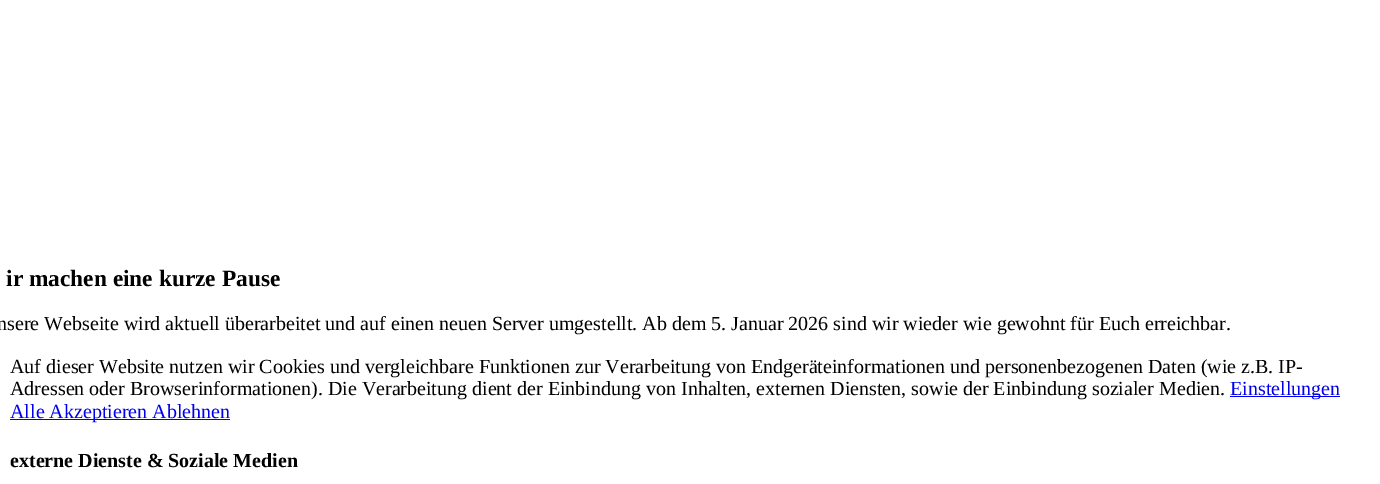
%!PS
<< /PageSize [1380 484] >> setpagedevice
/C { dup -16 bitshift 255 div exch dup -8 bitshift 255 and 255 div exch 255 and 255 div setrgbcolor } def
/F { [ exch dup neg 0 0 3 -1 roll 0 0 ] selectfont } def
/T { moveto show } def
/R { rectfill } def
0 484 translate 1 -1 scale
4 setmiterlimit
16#FFFFFF C
0 0 1380 484 R
/LiberationSerif-Bold 23.4 F
16#000000 C
(ir machen eine kurze Pause) 6 286 T
/LiberationSerif-Regular 20 F
(nsere Webseite wird aktuell überarbeitet und auf einen neuen Server umgestellt. Ab dem 5. Januar 2026 sind wir wieder wie gewohnt für Euch erreichbar.) -3 330 T
(Auf dieser Website nutzen wir Cookies und vergleichbare Funktionen zur Verarbeitung von Endgeräteinformationen und personenbezogenen Daten \(wie z.B. IP-) 10 373 T
(Adressen oder Browserinformationen\). Die Verarbeitung dient der Einbindung von Inhalten, externen Diensten, sowie der Einbindung sozialer Medien.) 10 395 T
16#0000EE C
1230 396 110 1 R
(Einstellungen) 1230 395 T
10 419 220 1 R
(Alle Akzeptieren Ablehnen) 10 418 T
/LiberationSerif-Bold 20 F
16#000000 C
(externe Dienste & Soziale Medien) 10 467 T
showpage
